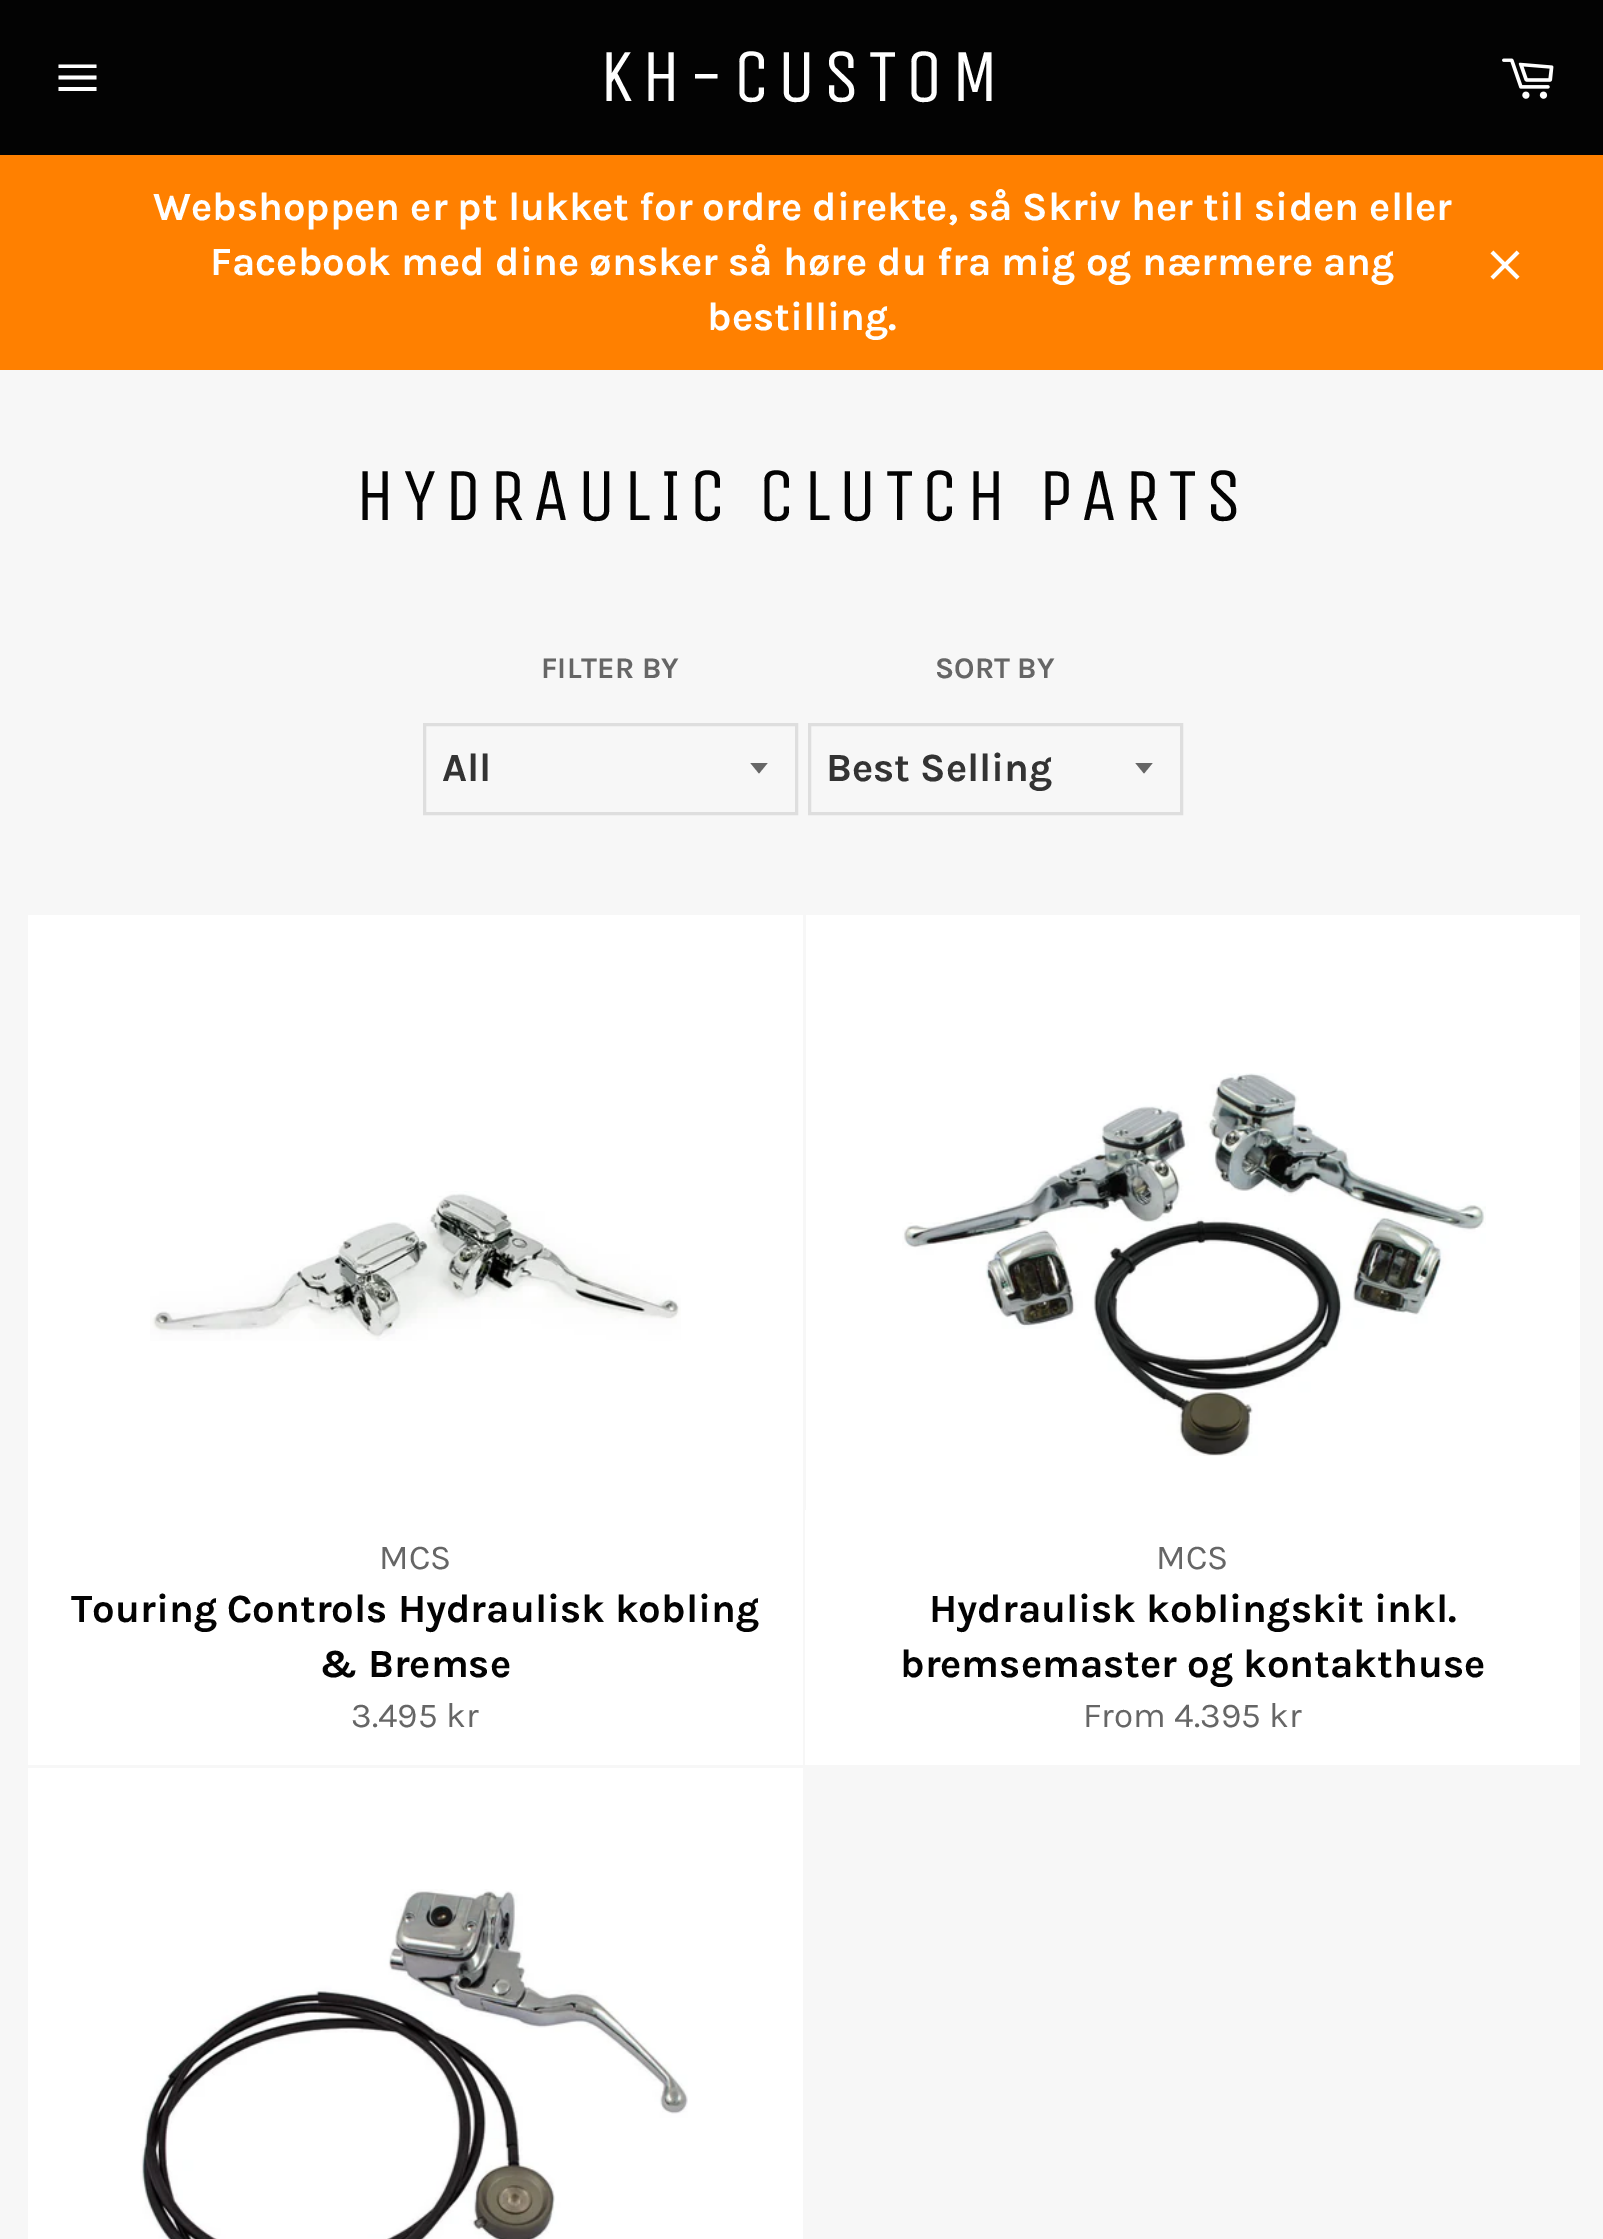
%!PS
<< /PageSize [1603 2239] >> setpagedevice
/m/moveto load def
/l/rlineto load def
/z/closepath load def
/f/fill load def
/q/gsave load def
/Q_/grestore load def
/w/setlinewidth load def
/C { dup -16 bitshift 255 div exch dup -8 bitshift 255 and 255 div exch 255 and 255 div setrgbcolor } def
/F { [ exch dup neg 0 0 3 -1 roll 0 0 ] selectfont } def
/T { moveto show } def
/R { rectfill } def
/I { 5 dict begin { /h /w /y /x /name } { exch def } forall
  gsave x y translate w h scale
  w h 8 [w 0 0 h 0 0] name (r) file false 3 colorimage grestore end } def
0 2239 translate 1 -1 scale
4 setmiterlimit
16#F7F7F7 C
0 0 1603 2239 R
16#030303 C
0 0 1603 155 R
16#FFFFFF C
58.5 75.5 m 38 0 l 0 4 l -38 0 l z 58.5 64.5 m 38 0 l 0 3.5 l -38 0 l z 58.5 87 m 38 0 l 0 4 l -38 0 l z f
/UnicaOne-Regular 75 F
599 101 m 7.5 0 (KH-CUSTOM) ashow
(1.rgb) 1502 58 52 41 I
16#FF8000 C
0 155 1603 215 R
/Karla-Bold 40 F
16#FFFFFF C
(Webshoppen er pt lukket for ordre direkte, så Skriv her til siden eller) 153 220 T
(Facebook med dine ønsker så høre du fra mig og nærmere ang) 210 275 T
(bestilling.) 707 330 T
(2.rgb) 1490 250 30 30 I
/UnicaOne-Regular 75 F
16#030303 C
355 520 m 7.5 0 (HYDRAULIC CLUTCH PARTS) ashow
/Karla-Bold 30 F
16#666666 C
(FILTER BY) 541 678 T
q
750 763 20 12 rectclip
750 762.5 m 9 11 l 9 -11 l z f
Q_
16#DEDEDE C
3 w
424.5 724.5 372 89 rectstroke
/Karla-Bold 40 F
16#333333 C
(All) 442 781 T
/Karla-Bold 30 F
16#666666 C
(SORT BY) 935 678 T
q
1135 763 20 12 rectclip
1135 762.5 m 9 11 l 9 -11 l z f
Q_
16#DEDEDE C
809.5 724.5 372 89 rectstroke
/Karla-Bold 40 F
16#333333 C
(Best Selling) 826 781 T
16#FFFFFF C
28 915 775 850 R
(3.rgb) 150 1191 531 150 I
/Karla-Regular 35 F
16#666666 C
(MCS) 379 1569 T
/Karla-Bold 40 F
16#030303 C
(Touring Controls Hydraulisk kobling) 71 1622 T
(& Bremse) 319 1677 T
/Karla-Regular 35 F
16#666666 C
(3.495 kr) 351 1727 T
16#FFFFFF C
806 915 774 595 R
(4.rgb) 902 1073 584 383 I
805 1510 775 255 R
16#666666 C
(MCS) 1156 1569 T
/Karla-Bold 40 F
16#030303 C
(Hydraulisk koblingskit inkl.) 929 1622 T
(bremsemaster og kontakthuse) 900 1677 T
/Karla-Regular 35 F
16#666666 C
(From 4.395 kr) 1083 1727 T
16#FFFFFF C
28 1768 775 471 R
(5.rgb) 140 1889 548 350 I
showpage
